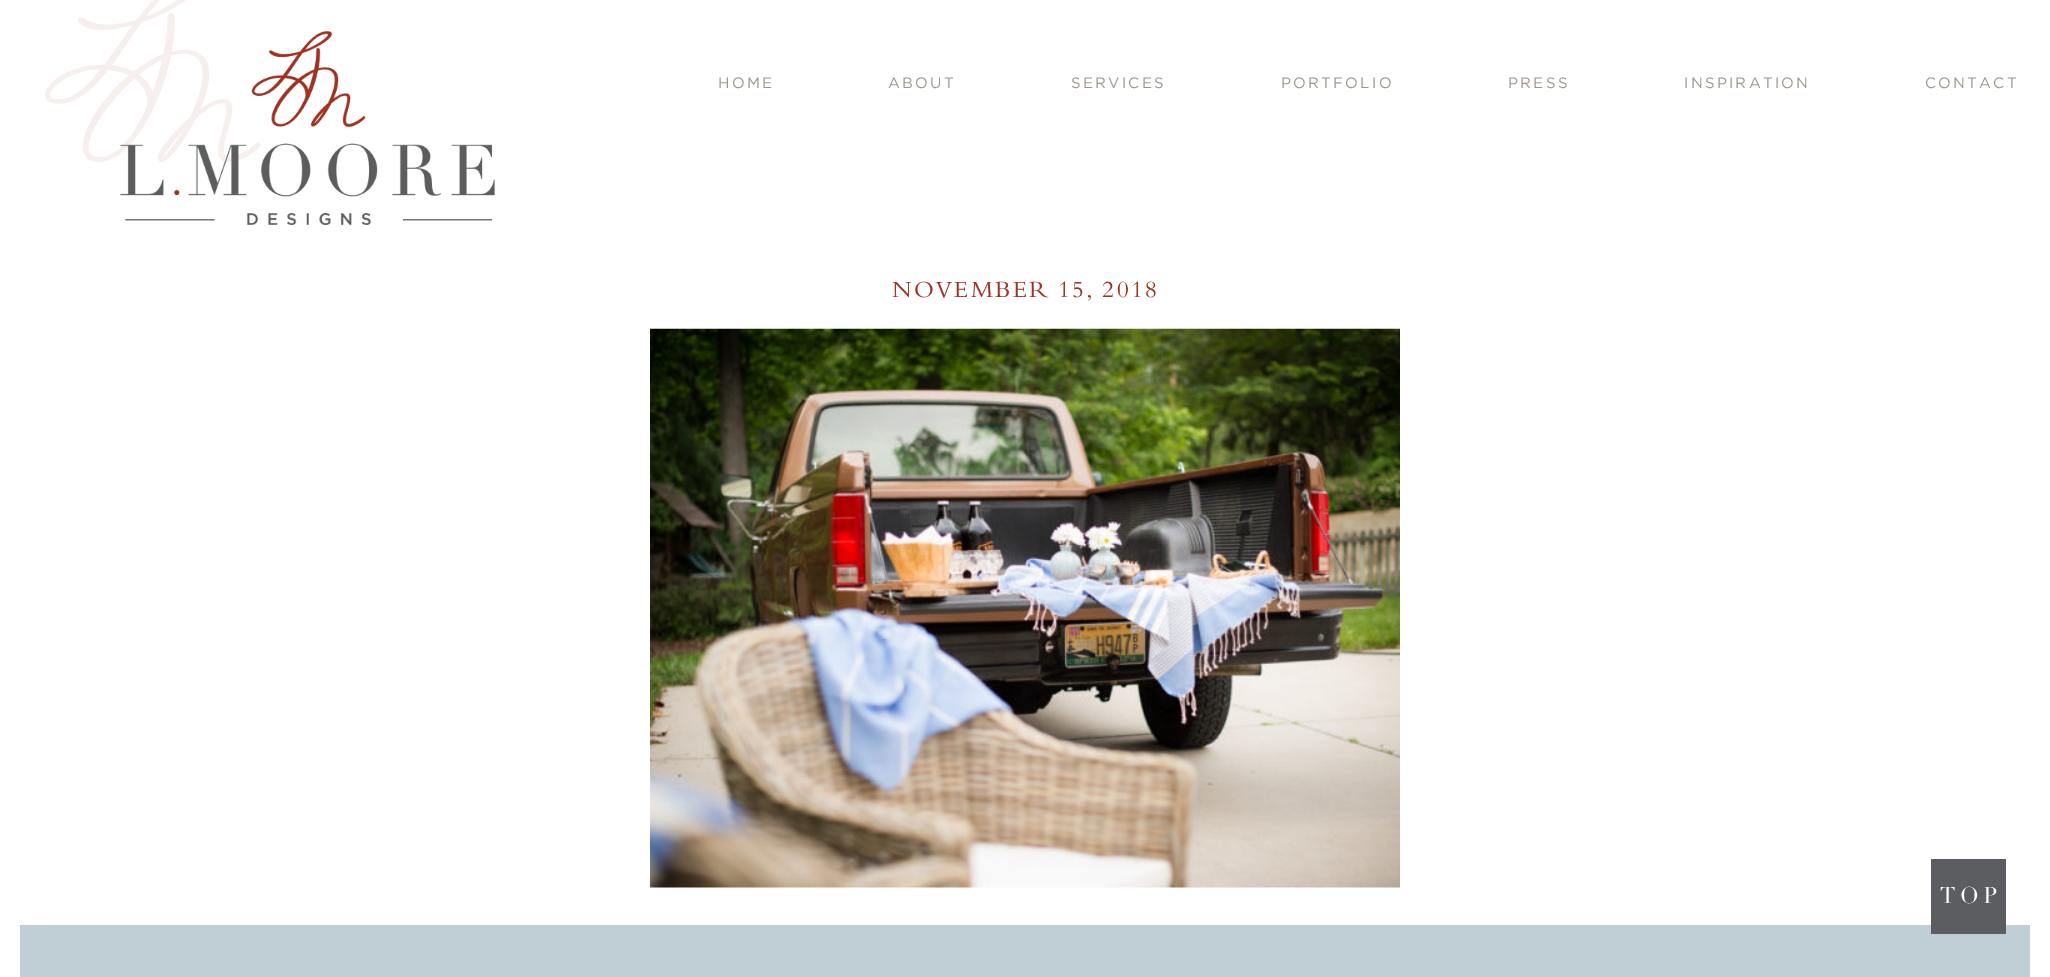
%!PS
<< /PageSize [2050 977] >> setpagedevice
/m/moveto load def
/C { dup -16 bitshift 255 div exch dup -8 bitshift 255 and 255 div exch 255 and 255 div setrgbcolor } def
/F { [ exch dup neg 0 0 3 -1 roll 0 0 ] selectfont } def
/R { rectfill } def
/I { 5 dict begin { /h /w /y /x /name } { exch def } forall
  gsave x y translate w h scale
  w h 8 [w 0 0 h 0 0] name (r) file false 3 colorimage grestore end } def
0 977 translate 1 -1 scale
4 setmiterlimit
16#FFFFFF C
0 0 2050 977 R
(1.rgb) 45 0 216 163 I
(2.rgb) 120 31 375 194 I
/Gotham-Regular 15 F
16#9D958C C
718 88 m 2.25 0 (HOME) ashow
888 88 m 2.25 0 (ABOUT) ashow
1071 88 m 2.25 0 (SERVICES) ashow
1281 88 m 2.25 0 (PORTFOLIO) ashow
1508 88 m 2.25 0 (PRESS) ashow
1684 88 m 2.25 0 (INSPIRATION) ashow
1925 88 m 2.25 0 (CONTACT) ashow
/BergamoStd-Regular 22.5 F
16#9E3223 C
892 297 m 2.25 0 (NOVEMBER 15, 2018) ashow
(3.rgb) 650 328 750 560 I
16#C0CED6 C
20 925 2010 52 R
16#5C5D60 C
1931 859 75 75 R
/Didot-Regular 22.5 F
16#FFFFFF C
1940 903 m 4.5 0 (TOP) ashow
showpage
